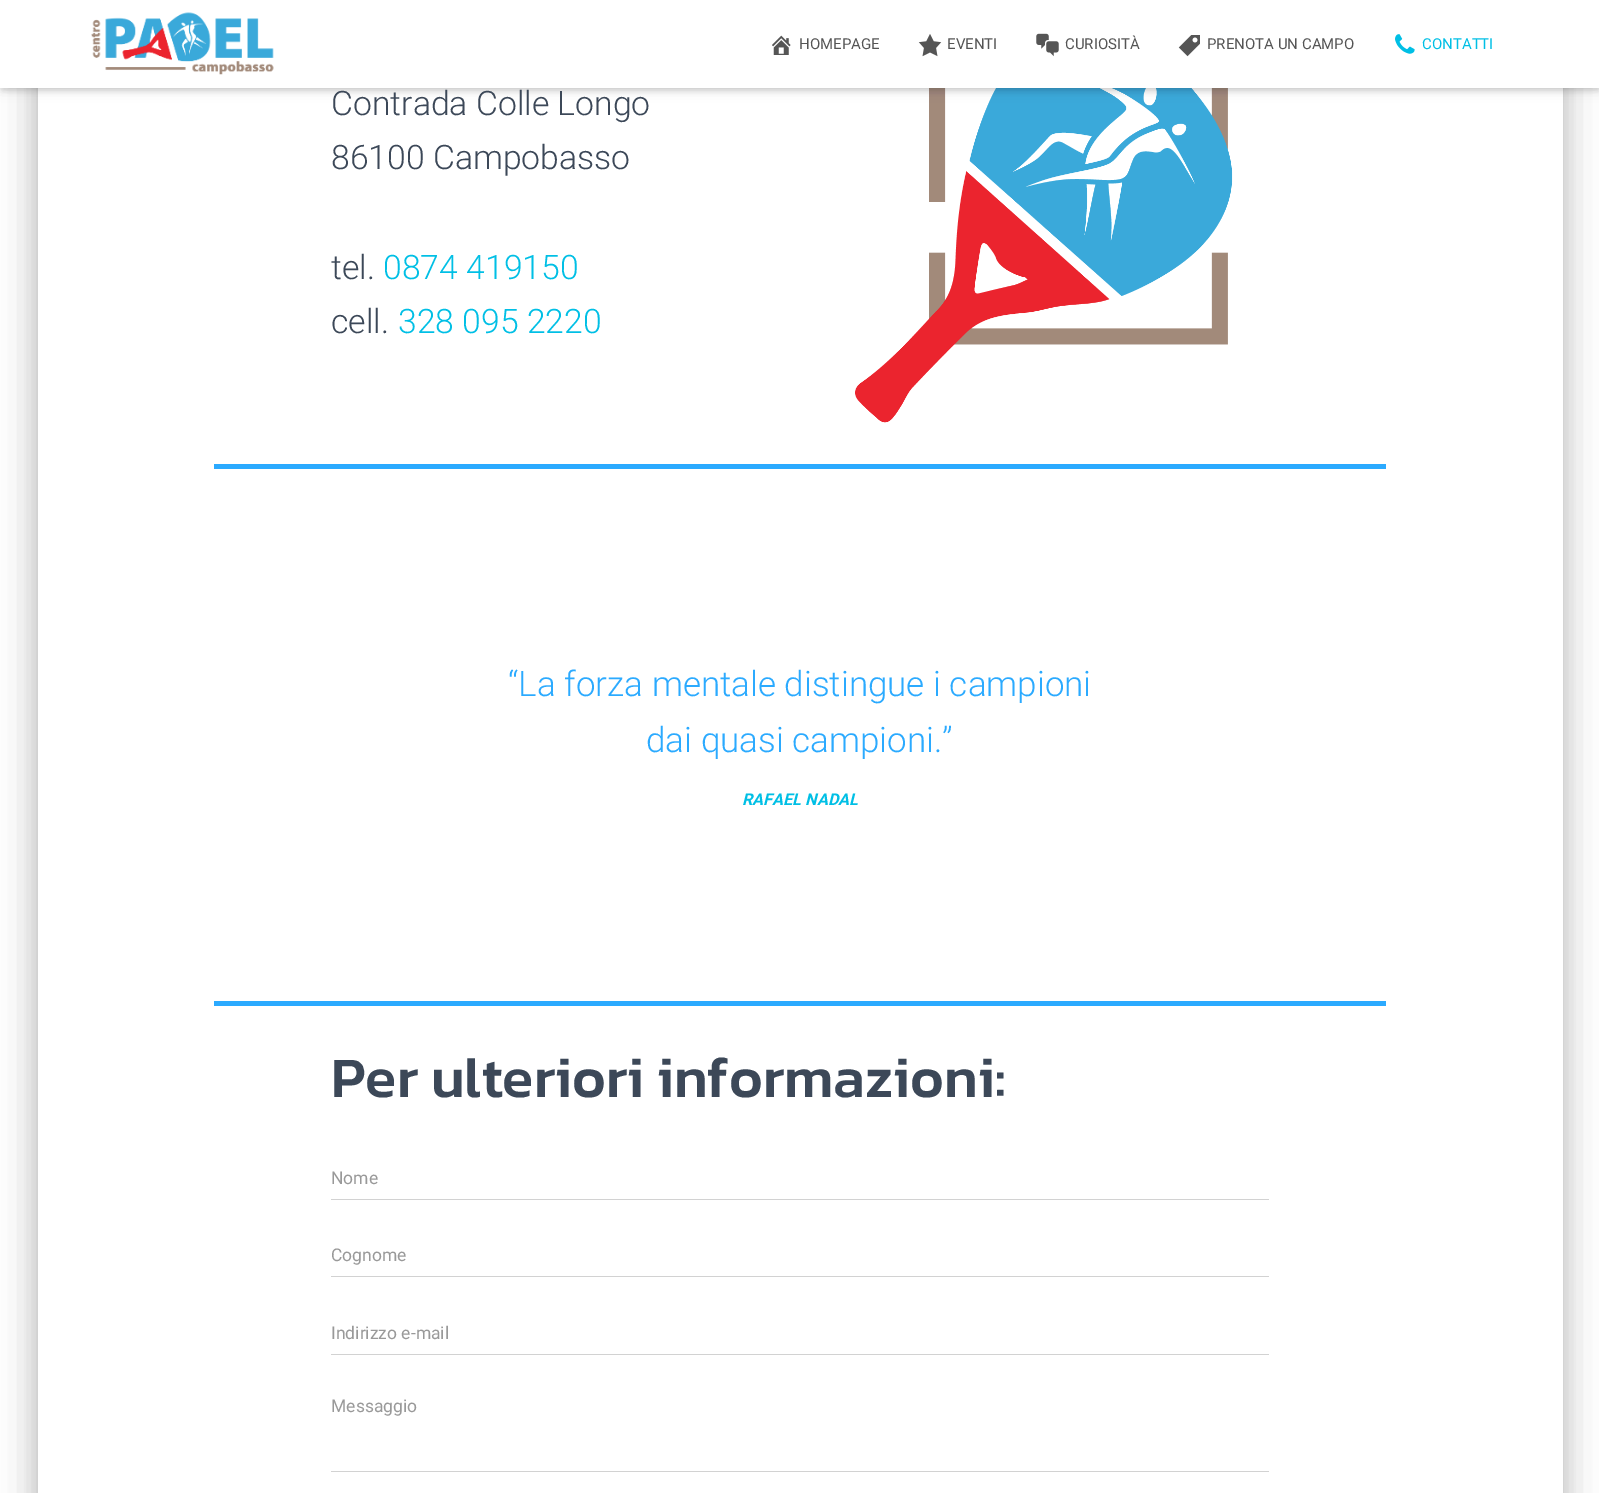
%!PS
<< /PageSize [1599 1493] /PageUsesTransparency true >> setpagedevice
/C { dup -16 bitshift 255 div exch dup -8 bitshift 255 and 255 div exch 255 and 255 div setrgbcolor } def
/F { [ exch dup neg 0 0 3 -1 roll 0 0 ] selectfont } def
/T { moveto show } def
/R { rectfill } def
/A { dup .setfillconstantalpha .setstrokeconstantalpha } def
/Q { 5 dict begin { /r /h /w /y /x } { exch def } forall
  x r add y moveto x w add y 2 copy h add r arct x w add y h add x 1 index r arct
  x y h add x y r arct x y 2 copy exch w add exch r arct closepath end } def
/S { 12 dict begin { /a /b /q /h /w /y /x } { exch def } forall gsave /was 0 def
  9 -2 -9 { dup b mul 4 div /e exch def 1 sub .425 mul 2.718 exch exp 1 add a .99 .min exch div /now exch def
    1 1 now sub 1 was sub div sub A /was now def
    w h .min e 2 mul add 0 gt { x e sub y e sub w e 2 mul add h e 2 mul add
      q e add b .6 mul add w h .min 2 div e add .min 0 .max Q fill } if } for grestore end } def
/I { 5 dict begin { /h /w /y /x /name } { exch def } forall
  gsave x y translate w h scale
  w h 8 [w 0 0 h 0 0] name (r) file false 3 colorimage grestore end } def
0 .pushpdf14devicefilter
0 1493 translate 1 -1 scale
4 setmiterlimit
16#FFFFFF C
0 0 1599 1493 R
16#000000 C
44 -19 1512 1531 1 6 .2 S
31 -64 1538 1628 14 19 .12 S
35 -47 1530 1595 10 15 .14 S
16#FFFFFF C
38 88 1525 1405 R
(7.rgb) 855 88 378 335 I
16#000000 C
3 8 1595 82 0 3 .1 S
0 1 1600 88 0 6 .12 S
8 9 1585 72 0 6 .42 S
16#FFFFFF C
0 0 1599 88 R
(1.rgb) 91 12 183 63 I
(2.rgb) 772 35 19 20 I
/Roboto-Regular 15 F
16#555555 C
(HOMEPAGE) 799 49 T
(3.rgb) 918 34 24 23 I
(EVENTI) 947 49 T
(4.rgb) 1036 33 23 24 I
(CURIOSITÀ) 1065 49 T
(5.rgb) 1178 35 22 22 I
(PRENOTA UN CAMPO) 1207 49 T
(6.rgb) 1395 34 20 20 I
16#00BFE5 C
(CONTATTI) 1422 49 T
/Roboto-Light 33.75 F
16#3C4858 C
(Contrada Colle Longo) 331 115 T
(86100 Campobasso) 331 169 T
(tel.) 331 279 T
16#00BFE5 C
(0874 419150) 383 279 T
16#3C4858 C
(cell.) 331 333 T
16#00BFE5 C
(328 095 2220) 398 333 T
16#2BAAFF C
214 464 1172 5 R
214 1001 1172 5 R
/Roboto-Light 35 F
(“La forza mentale distingue i campioni) 508 696 T
(dai quasi campioni.”) 646 752 T
/Roboto-BoldItalic 16.25 F
16#00BFE5 C
(RAFAEL NADAL) 742 805 T
/Kanit-Medium 57.5 F
16#3C4858 C
(Per ulteriori informazioni:) 331 1097 T
16#D2D2D2 C
331 1199 938 1 R
/Roboto-Regular 17.5 F
16#999999 C
(Nome) 331 1184 T
16#D2D2D2 C
331 1276 938 1 R
16#999999 C
(Cognome) 331 1261 T
16#D2D2D2 C
331 1354 938 1 R
16#999999 C
(Indirizzo e-mail) 331 1339 T
16#D2D2D2 C
331 1471 938 1 R
16#999999 C
(Messaggio) 331 1412 T
.poppdf14devicefilter showpage
